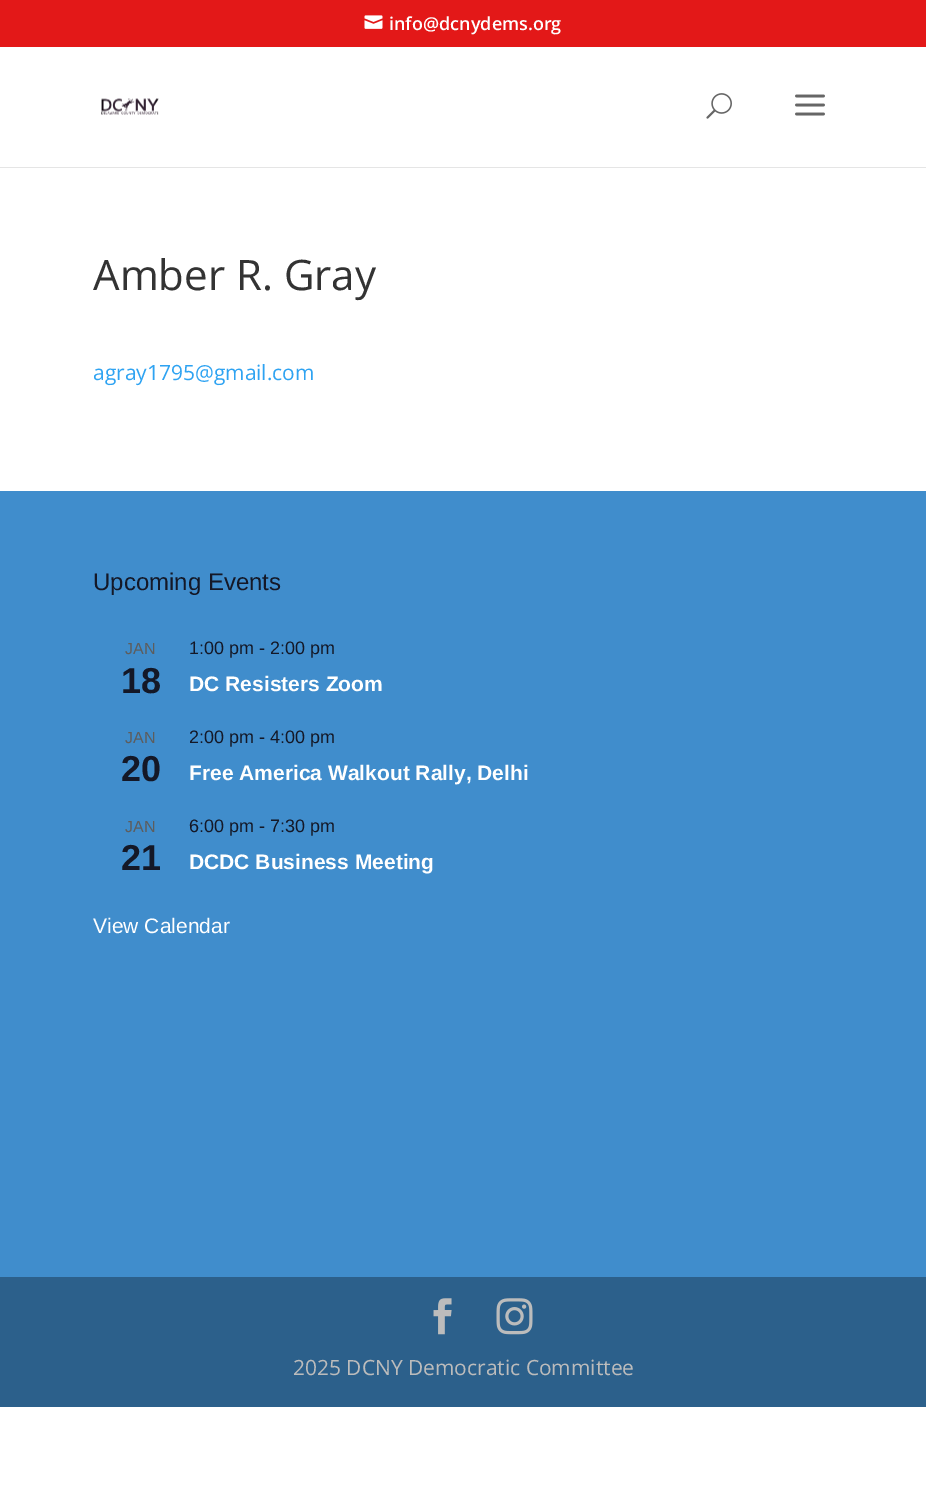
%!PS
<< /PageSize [926 1502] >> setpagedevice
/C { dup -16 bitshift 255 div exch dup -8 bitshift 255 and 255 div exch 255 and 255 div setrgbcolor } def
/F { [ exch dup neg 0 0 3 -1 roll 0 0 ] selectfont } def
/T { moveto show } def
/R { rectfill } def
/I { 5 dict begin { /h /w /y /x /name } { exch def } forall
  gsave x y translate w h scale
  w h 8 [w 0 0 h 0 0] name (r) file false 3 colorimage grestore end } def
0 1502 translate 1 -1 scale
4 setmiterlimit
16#FFFFFF C
0 0 926 1502 R
16#E31818 C
0 0 926 47 R
(1.rgb) 364 15 19 14 I
/OpenSans-SemiBold 18 F
16#FFFFFF C
(info@dcnydems.org) 389 30 T
16#E5E5E5 C
0 167 926 1 R
(2.rgb) 101 98 58 17 I
(3.rgb) 706 93 26 26 I
(4.rgb) 795 94 30 22 I
/OpenSans-Regular 42 F
16#333333 C
(Amber R. Gray) 93 290 T
/OpenSans-Regular 21 F
16#2EA3F2 C
(agray1795@gmail.com) 93 380 T
16#408DCC C
0 491 926 786 R
/LiberationSans-Regular 24 F
16#141827 C
(Upcoming Events) 93 590 T
/LiberationSans-Regular 16 F
16#5D5D5D C
(JAN) 125 654 T
/LiberationSans-Bold 36 F
16#141827 C
(18) 121 693 T
/LiberationSans-Regular 18 F
(1:00 pm - 2:00 pm) 189 654 T
/LiberationSans-Bold 21 F
16#FFFFFF C
(DC Resisters Zoom) 189 691 T
/LiberationSans-Regular 16 F
16#5D5D5D C
(JAN) 125 743 T
/LiberationSans-Bold 36 F
16#141827 C
(20) 121 781 T
/LiberationSans-Regular 18 F
(2:00 pm - 4:00 pm) 189 743 T
/LiberationSans-Bold 21 F
16#FFFFFF C
(Free America Walkout Rally, Delhi) 189 780 T
/LiberationSans-Regular 16 F
16#5D5D5D C
(JAN) 125 832 T
/LiberationSans-Bold 36 F
16#141827 C
(21) 121 870 T
/LiberationSans-Regular 18 F
(6:00 pm - 7:30 pm) 189 832 T
/LiberationSans-Bold 21 F
16#FFFFFF C
(DCDC Business Meeting) 189 869 T
/LiberationSans-Regular 21 F
(View Calendar) 93 933 T
16#2C608B C
0 1277 926 130 R
(5.rgb) 433 1298 19 37 I
(6.rgb) 496 1298 37 37 I
/OpenSans-Regular 21 F
16#BCBCBC C
(2025 DCNY Democratic Committee) 293 1375 T
showpage
